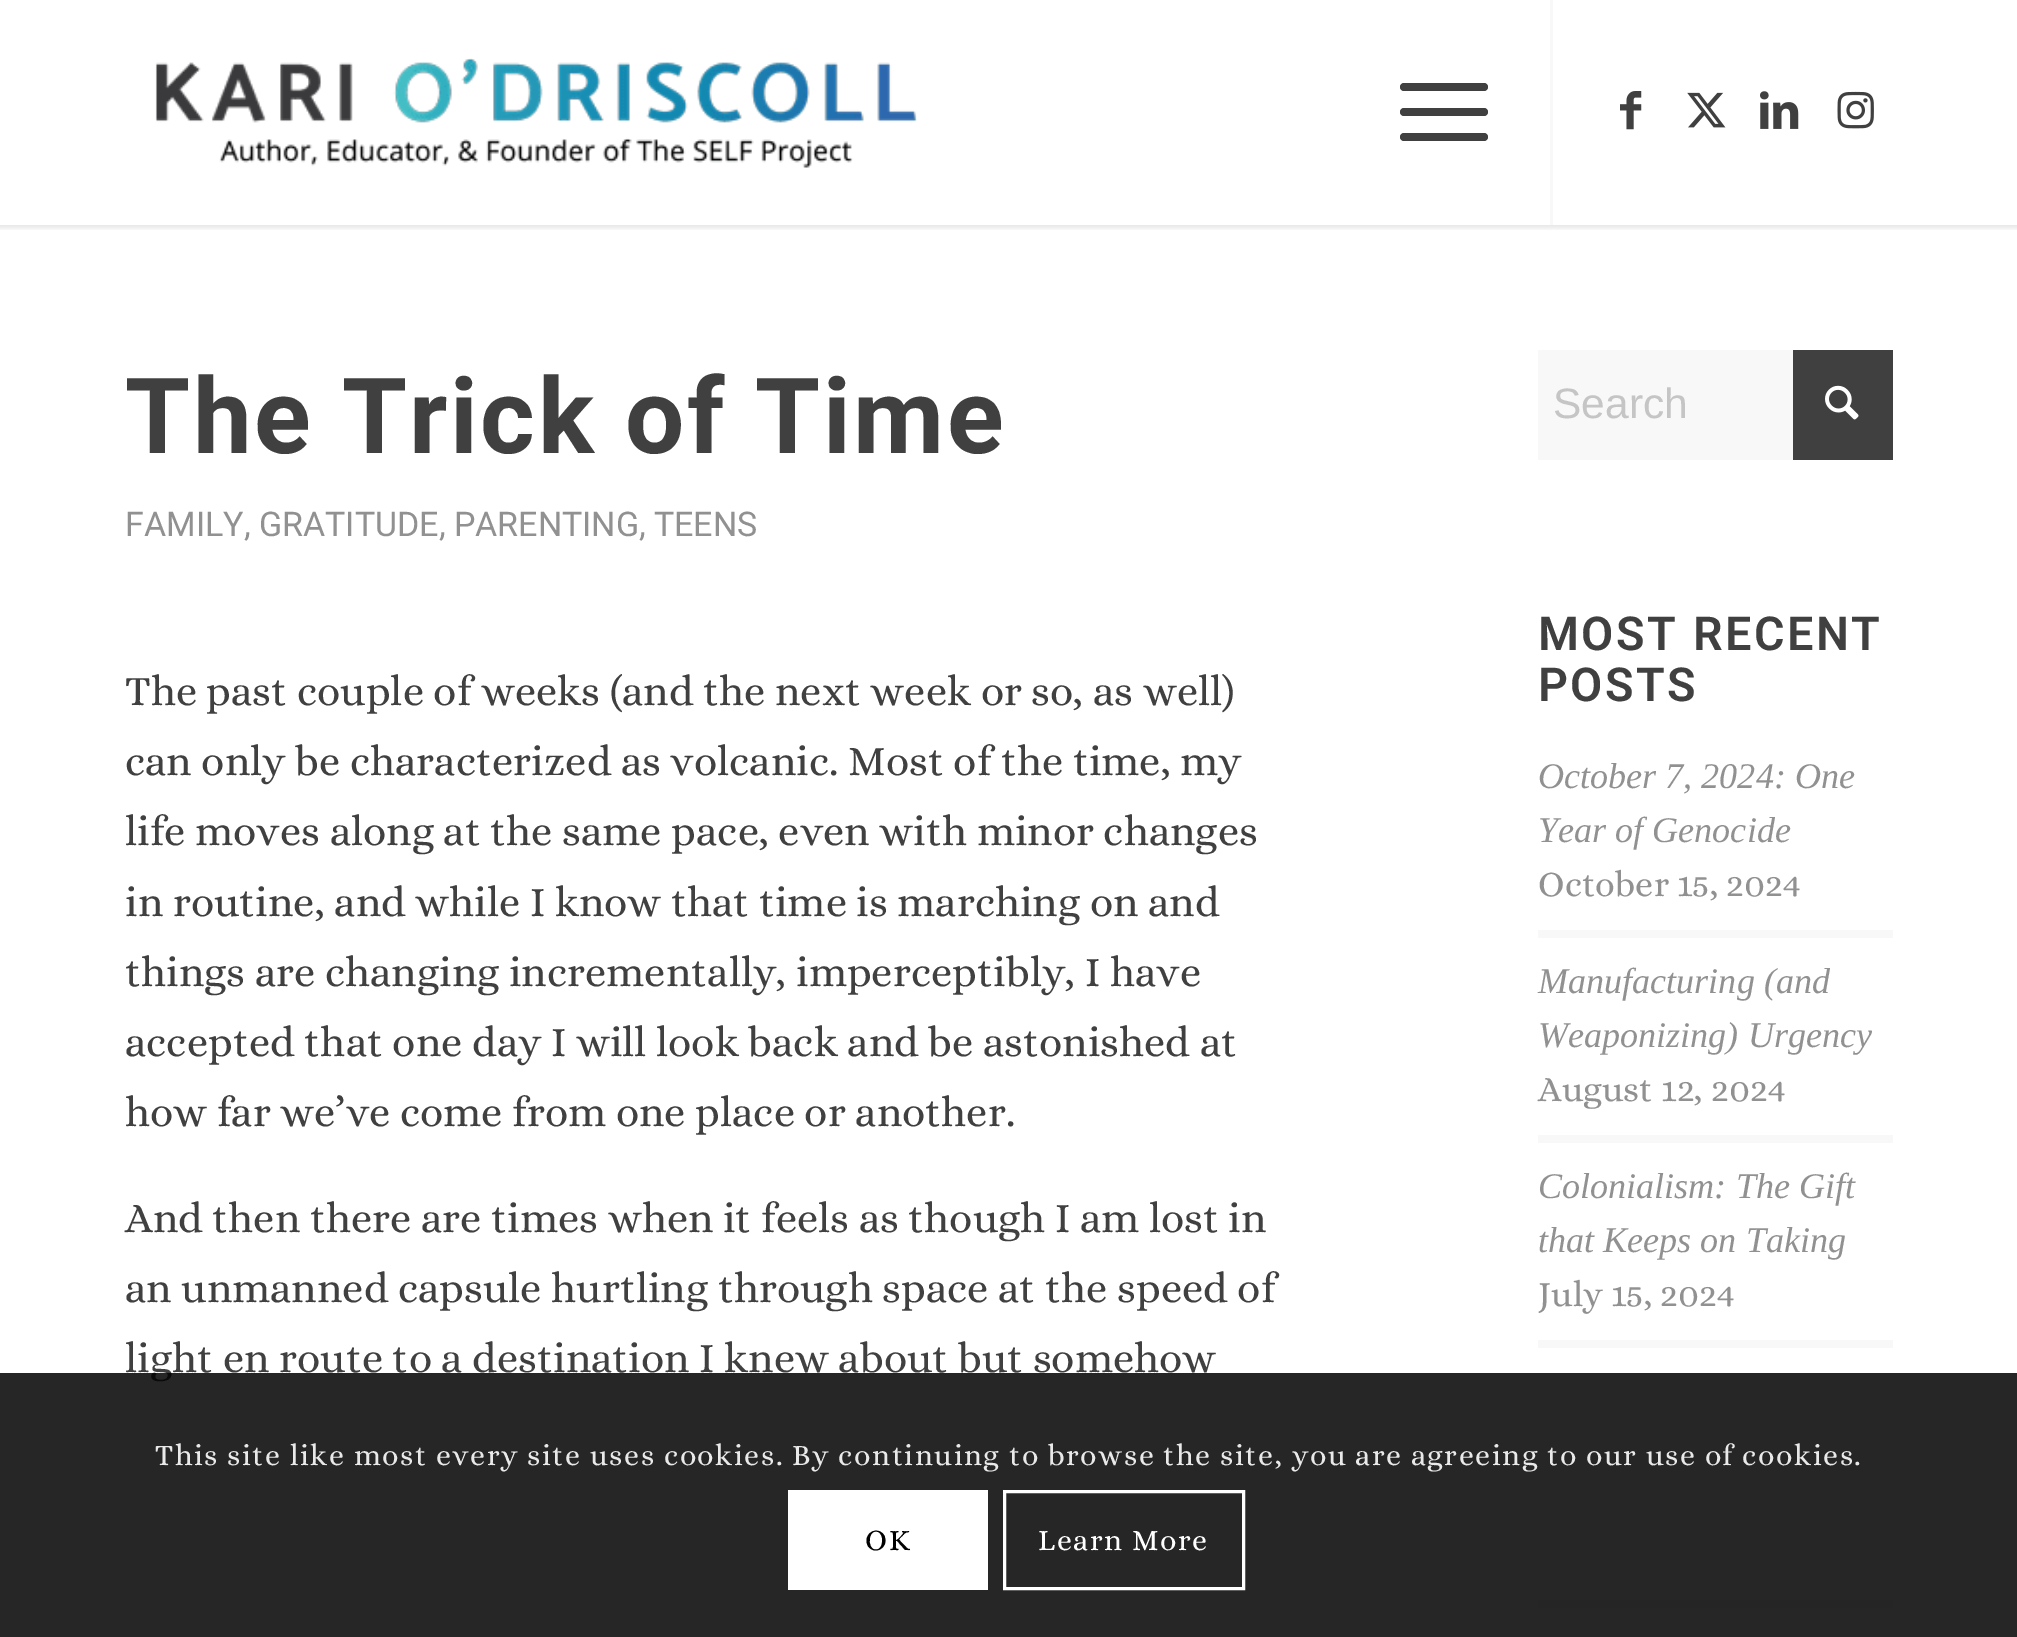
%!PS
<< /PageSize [2017 1637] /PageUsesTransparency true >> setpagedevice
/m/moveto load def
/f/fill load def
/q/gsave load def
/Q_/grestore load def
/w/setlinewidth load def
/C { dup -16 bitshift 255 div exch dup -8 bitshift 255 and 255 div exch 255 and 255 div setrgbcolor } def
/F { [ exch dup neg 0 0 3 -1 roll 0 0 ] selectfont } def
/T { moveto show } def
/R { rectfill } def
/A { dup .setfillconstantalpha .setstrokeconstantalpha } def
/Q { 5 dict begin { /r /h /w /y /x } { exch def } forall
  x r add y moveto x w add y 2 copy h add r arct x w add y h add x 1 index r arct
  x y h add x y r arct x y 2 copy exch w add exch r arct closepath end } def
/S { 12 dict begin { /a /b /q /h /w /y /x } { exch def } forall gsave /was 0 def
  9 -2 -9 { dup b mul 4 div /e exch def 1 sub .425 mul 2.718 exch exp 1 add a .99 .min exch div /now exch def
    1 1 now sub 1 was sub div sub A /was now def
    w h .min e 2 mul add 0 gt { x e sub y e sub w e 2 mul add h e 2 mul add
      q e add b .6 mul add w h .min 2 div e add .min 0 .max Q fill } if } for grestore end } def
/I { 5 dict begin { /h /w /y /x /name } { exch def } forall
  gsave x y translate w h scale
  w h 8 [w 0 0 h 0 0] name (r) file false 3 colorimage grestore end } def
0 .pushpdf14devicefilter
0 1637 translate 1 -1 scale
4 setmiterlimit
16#FFFFFF C
0 0 2017 1637 R
q
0 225 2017 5 rectclip
16#000000 C
-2 -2 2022 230 0 2.5 .1 S
Q_
(1.rgb) 155 58 762 110 I
16#F8F8F8 C
1550 0 3 225 R
16#404041 C
1400 108 88 8 4 Q f
1400 83 88 8 4 Q f
1400 133 88 8 4 Q f
(2.rgb) 1620 91 22 39 I
(3.rgb) 1687 92 39 36 I
(4.rgb) 1760 91 39 38 I
(5.rgb) 1837 91 37 38 I
/Roboto-Bold 105 F
125 453 m 2.5 0 (The Trick of Time) ashow
/Roboto-Regular 34 F
16#919191 C
(FAMILY, GRATITUDE, PARENTING, TEENS) 125 536 T
/Alice-Regular 42.5 F
16#404041 C
(The past couple of weeks \(and the next week or so, as well\)) 125 705 T
(can only be characterized as volcanic. Most of the time, my) 125 775 T
(life moves along at the same pace, even with minor changes) 125 845 T
(in routine, and while I know that time is marching on and) 125 916 T
(things are changing incrementally, imperceptibly, I have) 125 986 T
(accepted that one day I will look back and be astonished at) 125 1056 T
(how far we’ve come from one place or another.) 125 1126 T
(And then there are times when it feels as though I am lost in) 125 1232 T
(an unmanned capsule hurtling through space at the speed of) 125 1302 T
(light en route to a destination I knew about but somehow) 125 1372 T
16#F8F8F8 C
1538 350 255 110 R
/LiberationSans-Regular 42.5 F
16#C5C5C5 C
(Search) 1553 418 T
16#404041 C
1793 350 100 110 R
(6.rgb) 1825 385 34 35 I
/Roboto-SemiBold 46.75 F
1538 650 m 2.5 0 (MOST RECENT) ashow
1538 701 m 2.5 0 (POSTS) ashow
/LiberationSerif-Italic 36.1 F
16#919191 C
(October 7, 2024: One) 1538 788 T
(Year of Genocide) 1538 842 T
/Alice-Regular 36.1 F
(October 15, 2024) 1538 896 T
16#F8F8F8 C
1538 930 355 8 R
/LiberationSerif-Italic 36.1 F
16#919191 C
(Manufacturing \(and) 1538 993 T
(Weaponizing\) Urgency) 1538 1047 T
/Alice-Regular 36.1 F
(August 12, 2024) 1538 1101 T
16#F8F8F8 C
1538 1135 355 8 R
/LiberationSerif-Italic 36.1 F
16#919191 C
(Colonialism: The Gift) 1538 1198 T
(that Keeps on Taking) 1538 1252 T
/Alice-Regular 36.1 F
(July 15, 2024) 1538 1306 T
16#F8F8F8 C
1538 1340 355 8 R
1538 1600 355 8 R
0.85 A
16#000000 C
0 1373 2017 264 R
/Alice-Regular 30 F
1 A
16#E9E9E9 C
155 1465 m 1.5 0 (This site like most every site uses cookies. By continuing to browse the site, you are agreeing to our use of cookies.) ashow
16#FFFFFF C
788 1490 200 100 R
16#000000 C
865 1550 m 1.5 0 (OK) ashow
16#FFFFFF C
3 w
1004.5 1491.5 239 97 rectstroke
1038 1550 m 1.5 0 (Learn More) ashow
.poppdf14devicefilter showpage
